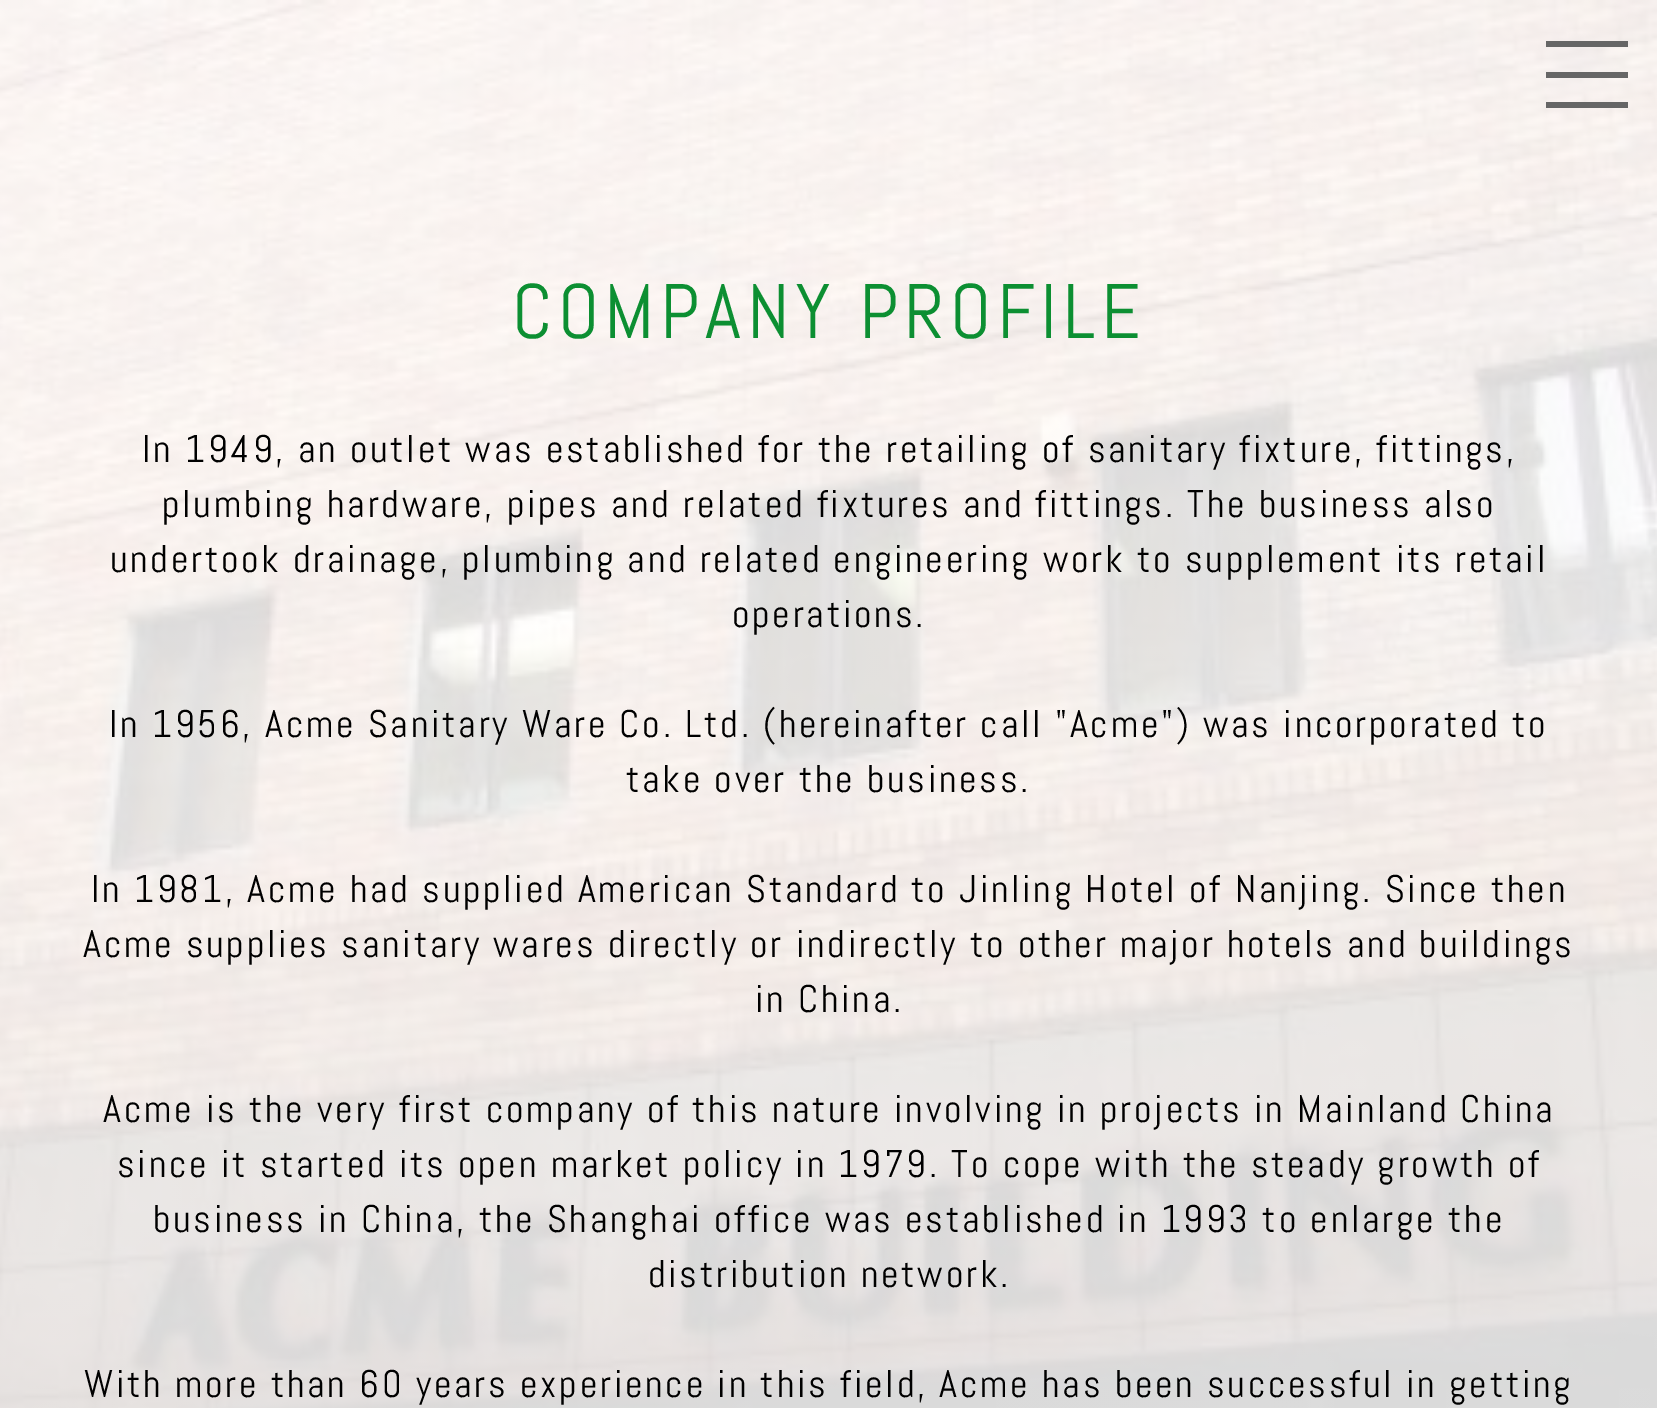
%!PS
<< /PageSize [1657 1408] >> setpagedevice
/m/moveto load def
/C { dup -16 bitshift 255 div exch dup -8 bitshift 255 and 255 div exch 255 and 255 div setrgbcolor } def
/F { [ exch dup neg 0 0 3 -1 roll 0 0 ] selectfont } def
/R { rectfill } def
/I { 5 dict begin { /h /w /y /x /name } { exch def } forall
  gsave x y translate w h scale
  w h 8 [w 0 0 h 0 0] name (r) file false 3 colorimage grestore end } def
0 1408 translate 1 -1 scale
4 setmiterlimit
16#FFFFFF C
0 0 1657 1408 R
(1.rgb) 0 0 1657 1408 I
16#666666 C
1546 41 82 6 R
1546 72 82 6 R
1546 102 82 6 R
/Abel-Regular 77 F
16#0C8F32 C
512 338 m 5.5 0 (COMPANY PROFILE) ashow
/Abel-Regular 38.5 F
16#000000 C
142 462 m 2.75 0 (In 1949, an outlet was established for the retailing of sanitary fixture, fittings,) ashow
162 517 m 2.75 0 (plumbing hardware, pipes and related fixtures and fittings. The business also) ashow
110 572 m 2.75 0 (undertook drainage, plumbing and related engineering work to supplement its retail) ashow
732 627 m 2.75 0 (operations.) ashow
109 737 m 2.75 0 (In 1956, Acme Sanitary Ware Co. Ltd. \(hereinafter call "Acme"\) was incorporated to) ashow
626 792 m 2.75 0 (take over the business.) ashow
91 902 m 2.75 0 (In 1981, Acme had supplied American Standard to Jinling Hotel of Nanjing. Since then) ashow
83 957 m 2.75 0 (Acme supplies sanitary wares directly or indirectly to other major hotels and buildings) ashow
755 1012 m 2.75 0 (in China.) ashow
103 1122 m 2.75 0 (Acme is the very first company of this nature involving in projects in Mainland China) ashow
117 1177 m 2.75 0 (since it started its open market policy in 1979. To cope with the steady growth of) ashow
153 1232 m 2.75 0 (business in China, the Shanghai office was established in 1993 to enlarge the) ashow
648 1287 m 2.75 0 (distribution network.) ashow
84 1397 m 2.75 0 (With more than 60 years experience in this field, Acme has been successful in getting) ashow
showpage
